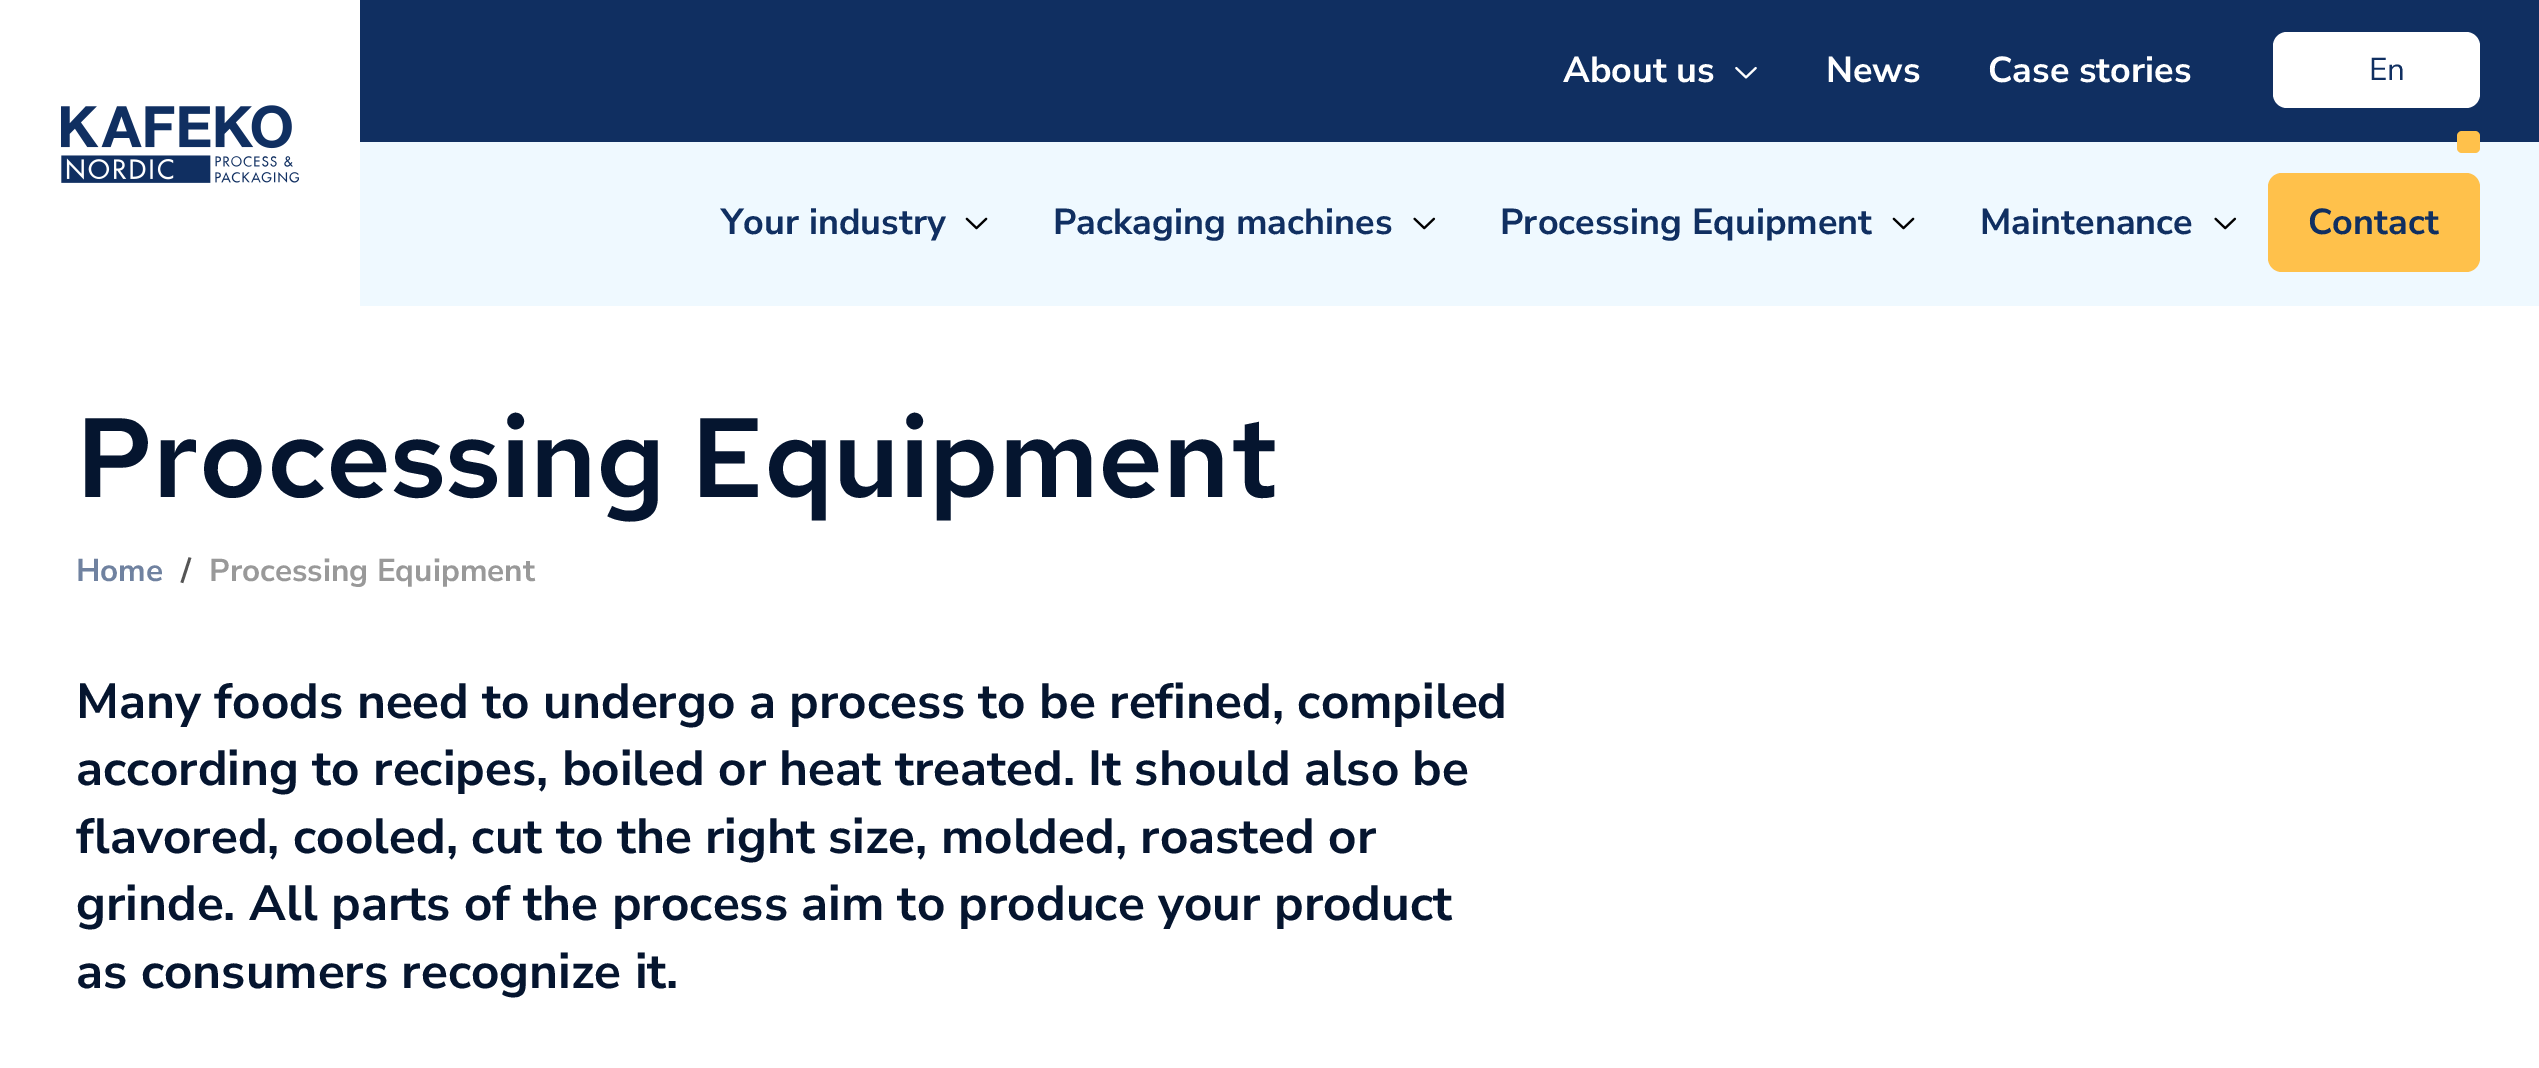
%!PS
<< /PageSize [2539 1068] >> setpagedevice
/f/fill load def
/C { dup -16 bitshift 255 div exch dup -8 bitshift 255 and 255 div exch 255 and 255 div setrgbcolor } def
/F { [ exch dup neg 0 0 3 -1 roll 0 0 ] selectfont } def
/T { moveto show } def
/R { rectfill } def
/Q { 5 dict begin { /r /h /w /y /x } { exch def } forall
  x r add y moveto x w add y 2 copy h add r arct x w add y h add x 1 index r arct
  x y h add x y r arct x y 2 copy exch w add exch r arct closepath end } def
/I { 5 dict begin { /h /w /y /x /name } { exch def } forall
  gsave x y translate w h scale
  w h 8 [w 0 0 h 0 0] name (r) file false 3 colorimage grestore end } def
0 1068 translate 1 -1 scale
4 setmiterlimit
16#FFFFFF C
0 0 2539 1068 R
16#EFF9FF C
360 142 2179 164 R
(1.rgb) 61 105 238 78 I
16#102F61 C
360 0 2179 142 R
/NunitoSans-Bold 36 F
16#FFFFFF C
(About us) 1563 82 T
(2.rgb) 1735 66 22 13 I
(News) 1826 82 T
(Case stories) 1988 82 T
2273 32 207 76 14 Q f
/NunitoSans-Regular 31.5 F
16#102F61 C
(En) 2369 80 T
16#FFC14B C
2457 131 23 22 5 Q f
/NunitoSans-Bold 36 F
16#102F61 C
(Your industry) 721 234 T
(3.rgb) 965 217 23 13 I
(Packaging machines) 1053 234 T
(4.rgb) 1413 217 23 13 I
(Processing Equipment) 1500 234 T
(3.rgb) 1892 217 23 13 I
(Maintenance) 1980 234 T
(4.rgb) 2214 217 23 13 I
16#FFC14B C
2268 173 212 99 14 Q f
16#102F61 C
(Contact) 2308 234 T
/RedHatText-SemiBold 112.5 F
16#05152F C
(Processing Equipment) 76 497 T
/NunitoSans-Bold 31.5 F
16#7082A0 C
(Home) 76 581 T
16#555555 C
(/) 181 581 T
16#999999 C
(Processing Equipment) 209 581 T
/NunitoSans-Bold 49.5 F
16#05152F C
(Many foods need to undergo a process to be refined, compiled) 76 718 T
(according to recipes, boiled or heat treated. It should also be) 76 785 T
(flavored, cooled, cut to the right size, molded, roasted or) 76 853 T
(grinde. All parts of the process aim to produce your product) 76 920 T
(as consumers recognize it.) 76 988 T
showpage
